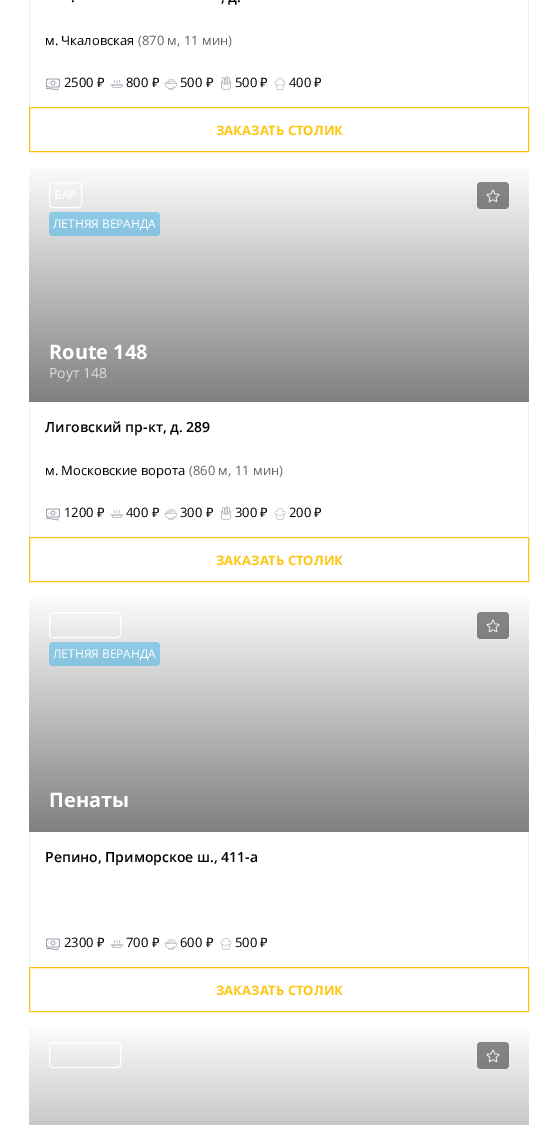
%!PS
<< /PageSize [558 1125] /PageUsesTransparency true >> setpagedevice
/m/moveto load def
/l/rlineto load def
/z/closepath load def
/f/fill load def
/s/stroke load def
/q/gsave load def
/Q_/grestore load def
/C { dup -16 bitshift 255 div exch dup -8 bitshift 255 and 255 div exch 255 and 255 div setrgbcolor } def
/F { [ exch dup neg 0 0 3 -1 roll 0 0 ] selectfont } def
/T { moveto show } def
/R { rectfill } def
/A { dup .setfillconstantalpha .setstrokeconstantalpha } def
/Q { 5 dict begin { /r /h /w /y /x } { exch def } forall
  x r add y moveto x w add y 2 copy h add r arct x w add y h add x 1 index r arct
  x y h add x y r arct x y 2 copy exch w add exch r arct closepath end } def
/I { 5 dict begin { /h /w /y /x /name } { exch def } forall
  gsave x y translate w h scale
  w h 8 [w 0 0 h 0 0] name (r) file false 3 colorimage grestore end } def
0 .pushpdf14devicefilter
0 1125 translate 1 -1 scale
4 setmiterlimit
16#FFFFFF C
0 0 558 1125 R
16#EFF0F0 C
528 0 1 107 R
29 0 1 107 R
/OpenSans-SemiBold 14 F
16#000000 C
(.) 71 2 T
(, д.) 221 2 T
/OpenSans-Regular 13 F
(м. Чкаловская) 45 45 T
16#666666 C
(\(870 м, 11 мин\)) 138 45 T
(1.rgb) 46 78 14 13 I
16#000000 C
(2500) 64 87 T
/NotoSans-Regular 13 F
(₽) 97 87 T
(2.rgb) 110 80 14 8 I
/OpenSans-Regular 13 F
(800) 126 87 T
/NotoSans-Regular 13 F
(₽) 152 87 T
(3.rgb) 164 78 14 12 I
/OpenSans-Regular 13 F
(500) 180 87 T
/NotoSans-Regular 13 F
(₽) 206 87 T
(4.rgb) 220 76 12 14 I
/OpenSans-Regular 13 F
(500) 235 87 T
/NotoSans-Regular 13 F
(₽) 260 87 T
(5.rgb) 274 78 12 12 I
/OpenSans-Regular 13 F
(400) 289 87 T
/NotoSans-Regular 13 F
(₽) 314 87 T
16#FFC40D C
29.5 107.5 499 44 rectstroke
/OpenSans-Bold 13 F
(ЗАКАЗАТЬ СТОЛИК) 216 135 T
q 29 167 m 500 0 l 0 235 l -500 0 l z clip newpath
<< /ShadingType 2 /ColorSpace /DeviceRGB /Coords [279 402 279 162] /Extend [true true] /Function << /FunctionType 2 /Domain [0 1] /C0 [.502 .502 .502] /C1 [1 1 1] /N 1 >> >> shfill Q_
16#FFFFFF C
49.5 182.5 32 25 3.5 Q s
/OpenSans-SemiBold 12 F
(БАР) 54 199 T
0.45 A
16#000000 C
477 182 32 27 4 Q f
1 A
(6.rgb) 486 189 14 14 I
0.4 A
16#0EA5E9 C
49 212 111 24 4 Q f
/OpenSans-Regular 12 F
1 A
16#FFFFFF C
(ЛЕТНЯЯ ВЕРАНДА) 53 228 T
/OpenSans-Bold 20 F
(Route 148) 49 359 T
/OpenSans-Regular 14 F
16#DDDDDD C
(Роут 148) 49 378 T
16#EFF0F0 C
528 402 1 135 R
29 402 1 135 R
/OpenSans-SemiBold 14 F
16#000000 C
(Лиговский пр-кт, д. 289) 45 432 T
/OpenSans-Regular 13 F
(м. Московские ворота) 45 475 T
16#666666 C
(\(860 м, 11 мин\)) 189 475 T
(1.rgb) 46 508 14 13 I
16#000000 C
(1200) 64 517 T
/NotoSans-Regular 13 F
(₽) 97 517 T
(2.rgb) 110 510 14 8 I
/OpenSans-Regular 13 F
(400) 126 517 T
/NotoSans-Regular 13 F
(₽) 152 517 T
(3.rgb) 164 508 14 12 I
/OpenSans-Regular 13 F
(300) 180 517 T
/NotoSans-Regular 13 F
(₽) 206 517 T
(4.rgb) 220 506 12 14 I
/OpenSans-Regular 13 F
(300) 235 517 T
/NotoSans-Regular 13 F
(₽) 260 517 T
(5.rgb) 274 508 12 12 I
/OpenSans-Regular 13 F
(200) 289 517 T
/NotoSans-Regular 13 F
(₽) 314 517 T
16#FFC40D C
29.5 537.5 499 44 rectstroke
/OpenSans-Bold 13 F
(ЗАКАЗАТЬ СТОЛИК) 216 565 T
q 29 597 m 500 0 l 0 235 l -500 0 l z clip newpath
<< /ShadingType 2 /ColorSpace /DeviceRGB /Coords [279 832 279 592] /Extend [true true] /Function << /FunctionType 2 /Domain [0 1] /C0 [.502 .502 .502] /C1 [1 1 1] /N 1 >> >> shfill Q_
16#FFFFFF C
49.5 612.5 71 25 3.5 Q s
0.45 A
16#000000 C
477 612 32 27 4 Q f
1 A
(6.rgb) 486 619 14 14 I
0.4 A
16#0EA5E9 C
49 642 111 24 4 Q f
/OpenSans-Regular 12 F
1 A
16#FFFFFF C
(ЛЕТНЯЯ ВЕРАНДА) 53 658 T
/OpenSans-Bold 20 F
(Пенаты) 49 807 T
16#EFF0F0 C
528 832 1 135 R
29 832 1 135 R
/OpenSans-SemiBold 14 F
16#000000 C
(Репино, Приморское ш., 411-а) 45 862 T
(1.rgb) 46 938 14 13 I
/OpenSans-Regular 13 F
(2300) 64 947 T
/NotoSans-Regular 13 F
(₽) 97 947 T
(2.rgb) 110 940 14 8 I
/OpenSans-Regular 13 F
(700) 126 947 T
/NotoSans-Regular 13 F
(₽) 152 947 T
(3.rgb) 164 938 14 12 I
/OpenSans-Regular 13 F
(600) 180 947 T
/NotoSans-Regular 13 F
(₽) 206 947 T
(5.rgb) 220 938 12 12 I
/OpenSans-Regular 13 F
(500) 235 947 T
/NotoSans-Regular 13 F
(₽) 260 947 T
16#FFC40D C
29.5 967.5 499 44 rectstroke
/OpenSans-Bold 13 F
(ЗАКАЗАТЬ СТОЛИК) 216 995 T
q 29 1027 m 500 0 l 0 98 l -500 0 l z clip newpath
<< /ShadingType 2 /ColorSpace /DeviceRGB /Coords [279 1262 279 1022] /Extend [true true] /Function << /FunctionType 2 /Domain [0 1] /C0 [.502 .502 .502] /C1 [1 1 1] /N 1 >> >> shfill Q_
16#FFFFFF C
49.5 1042.5 71 25 3.5 Q s
0.45 A
16#000000 C
477 1042 32 27 4 Q f
1 A
(6.rgb) 486 1049 14 14 I
.poppdf14devicefilter showpage
